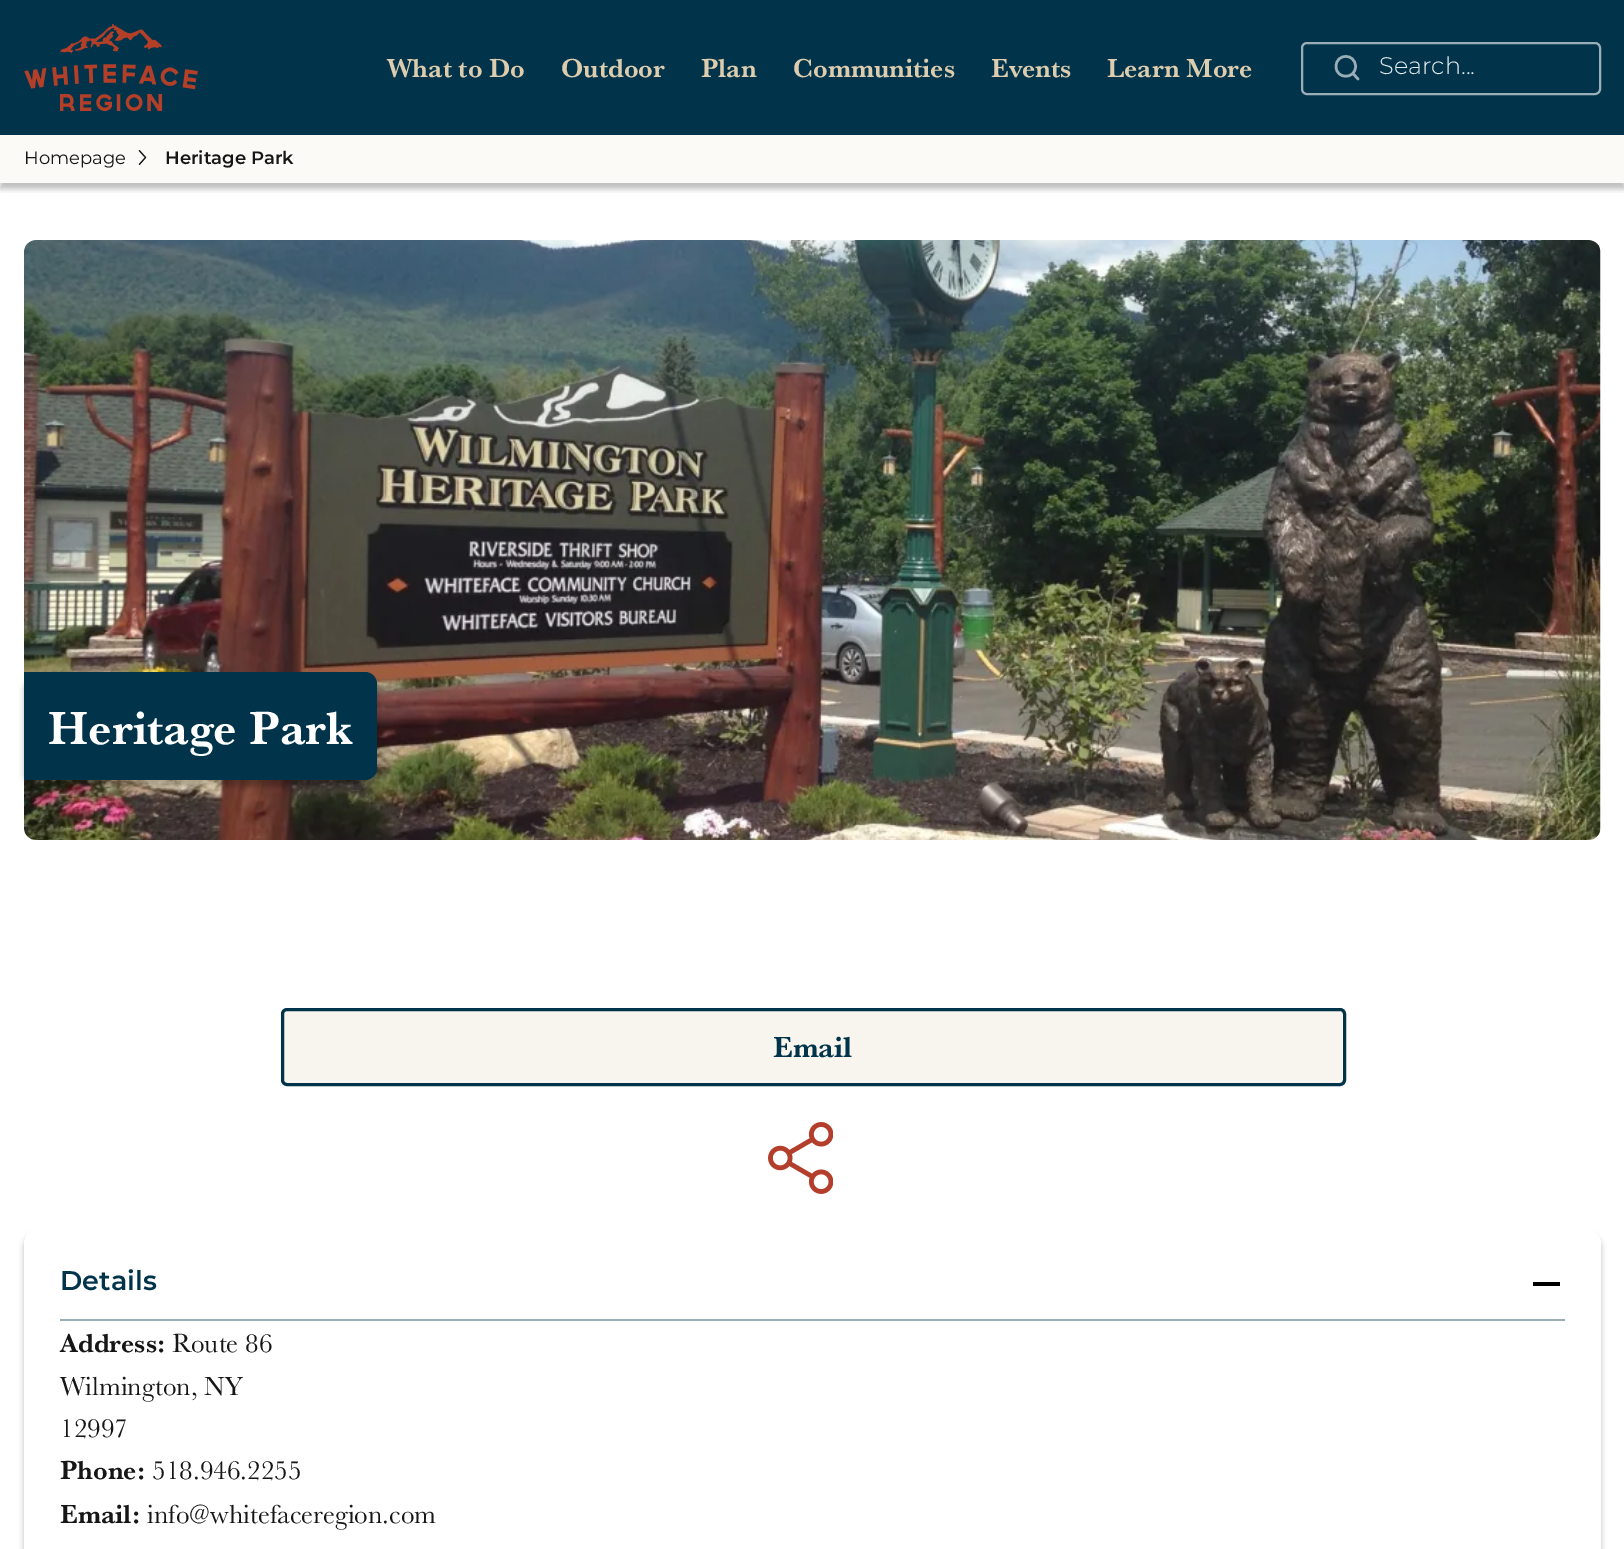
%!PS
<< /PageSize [1624 1549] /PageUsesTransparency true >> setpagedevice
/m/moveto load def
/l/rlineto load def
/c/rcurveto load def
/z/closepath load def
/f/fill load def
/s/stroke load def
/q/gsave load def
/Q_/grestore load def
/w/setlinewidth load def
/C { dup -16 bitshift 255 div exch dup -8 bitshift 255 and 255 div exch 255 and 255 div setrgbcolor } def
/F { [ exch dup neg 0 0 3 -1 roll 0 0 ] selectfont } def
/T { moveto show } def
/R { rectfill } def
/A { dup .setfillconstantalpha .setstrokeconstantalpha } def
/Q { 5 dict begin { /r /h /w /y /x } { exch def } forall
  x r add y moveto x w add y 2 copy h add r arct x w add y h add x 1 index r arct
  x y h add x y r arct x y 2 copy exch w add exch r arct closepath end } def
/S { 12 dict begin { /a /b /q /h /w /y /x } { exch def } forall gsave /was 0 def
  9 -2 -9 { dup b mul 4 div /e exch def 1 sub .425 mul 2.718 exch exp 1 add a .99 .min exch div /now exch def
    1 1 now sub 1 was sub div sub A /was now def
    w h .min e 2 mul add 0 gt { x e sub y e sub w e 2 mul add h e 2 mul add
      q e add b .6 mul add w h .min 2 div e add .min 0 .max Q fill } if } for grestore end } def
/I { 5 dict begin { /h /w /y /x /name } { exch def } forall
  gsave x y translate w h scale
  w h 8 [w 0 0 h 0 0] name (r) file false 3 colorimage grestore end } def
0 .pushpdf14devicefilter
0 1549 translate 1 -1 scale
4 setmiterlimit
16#01344B C
0 0 1624 1549 R
16#FFFFFF C
0 183 1624 1366 R
q
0 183 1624 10 rectclip
16#000000 C
0 6 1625 183 0 3 .25 S
Q_
(1.rgb) 24 24 174 87 I
/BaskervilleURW-Bold 27 F
16#DDCDAE C
(What to Do) 387 77 T
(Outdoor) 561 77 T
(Plan) 701 77 T
(Communities) 793 77 T
(Events) 991 77 T
(Learn More) 1107 77 T
16#99AEB7 C
2 w
1302 43 298 51 5 Q s
2.5 w
1 setlinecap
1 setlinejoin
1358 79 m -5 -5.5 l 1355.5 66.5 m 0 13 -19.5 13 -19.5 0 c 0 -13.5 19.5 -13.5 19.5 0 c z s
/Montserrat-Light 24 F
16#E6EBED C
(Search...) 1379 74 T
16#FCFAF7 C
0 135 1624 48 R
/Montserrat-Regular 18 F
16#161616 C
(Homepage) 24 164 T
(2.rgb) 138 150 9 15 I
/Montserrat-SemiBold 18 F
(Heritage Park) 165 164 T
(3.rgb) 24 240 1577 600 I
16#000000 C
24 678 353 108 12 3 .25 S
16#01344B C
24 672 m 341 0 l 6.5 0 12 5.5 12 12 c 0 84 l 0 6.5 -5.5 12 -12 12 c -341 0 l z f
/BaskervilleURW-Bold 48 F
16#FFFFFF C
(Heritage Park) 48 744 T
16#F8F5EF C
282.5 1009.5 1062 75 4.5 Q q f Q_
16#01344B C
3 w
0 setlinecap
0 setlinejoin
s
/BaskervilleURW-Bold 30 F
(Email) 773 1057 T
(4.rgb) 768 1122 65 72 I
q
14 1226 m 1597 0 l 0 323 l -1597 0 l z 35 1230 m 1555 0 l 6 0 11 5 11 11 c 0 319 l 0 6 -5 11 -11 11 c -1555 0 l -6 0 -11 -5 -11 -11 c 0 -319 l 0 -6 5 -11 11 -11 c z eoclip newpath
16#000000 C
24 1236 1577 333 11 3 .25 S
Q_
16#99AEB7 C
60 1319 1505 2 R
/Montserrat-SemiBold 27 F
16#01344B C
(Details) 60 1290 T
16#000000 C
1533 1282 27 4 R
/BaskervilleURW-Bold 27 F
16#161616 C
(Address:) 60 1352 T
/BaskervilleURW-Regular 27 F
(Route 86) 172 1352 T
(Wilmington, NY) 60 1395 T
(12997) 60 1437 T
/BaskervilleURW-Bold 27 F
(Phone:) 60 1479 T
/BaskervilleURW-Regular 27 F
(518.946.2255) 152 1479 T
/BaskervilleURW-Bold 27 F
(Email:) 60 1523 T
/BaskervilleURW-Regular 27 F
(info@whitefaceregion.com) 147 1523 T
.poppdf14devicefilter showpage
